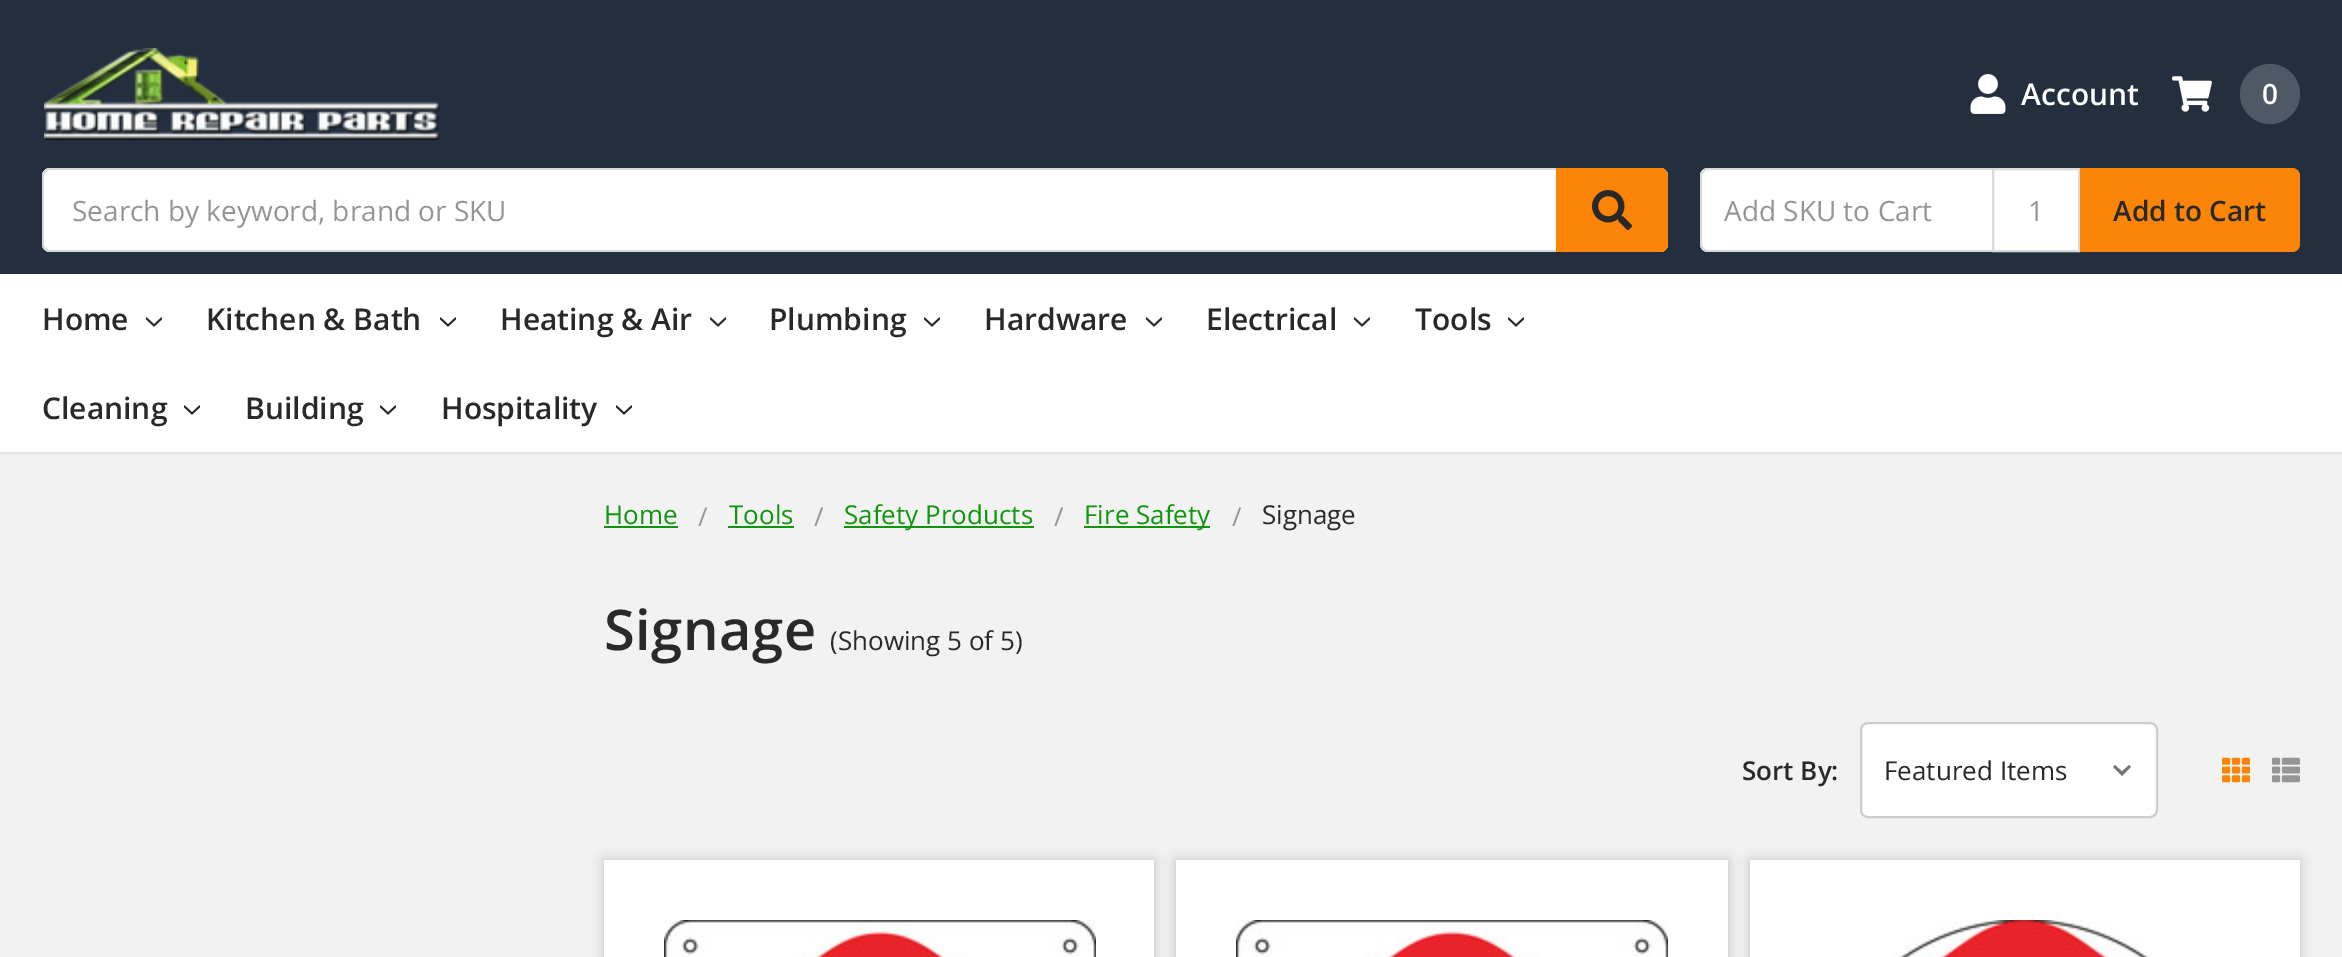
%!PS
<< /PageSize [2342 957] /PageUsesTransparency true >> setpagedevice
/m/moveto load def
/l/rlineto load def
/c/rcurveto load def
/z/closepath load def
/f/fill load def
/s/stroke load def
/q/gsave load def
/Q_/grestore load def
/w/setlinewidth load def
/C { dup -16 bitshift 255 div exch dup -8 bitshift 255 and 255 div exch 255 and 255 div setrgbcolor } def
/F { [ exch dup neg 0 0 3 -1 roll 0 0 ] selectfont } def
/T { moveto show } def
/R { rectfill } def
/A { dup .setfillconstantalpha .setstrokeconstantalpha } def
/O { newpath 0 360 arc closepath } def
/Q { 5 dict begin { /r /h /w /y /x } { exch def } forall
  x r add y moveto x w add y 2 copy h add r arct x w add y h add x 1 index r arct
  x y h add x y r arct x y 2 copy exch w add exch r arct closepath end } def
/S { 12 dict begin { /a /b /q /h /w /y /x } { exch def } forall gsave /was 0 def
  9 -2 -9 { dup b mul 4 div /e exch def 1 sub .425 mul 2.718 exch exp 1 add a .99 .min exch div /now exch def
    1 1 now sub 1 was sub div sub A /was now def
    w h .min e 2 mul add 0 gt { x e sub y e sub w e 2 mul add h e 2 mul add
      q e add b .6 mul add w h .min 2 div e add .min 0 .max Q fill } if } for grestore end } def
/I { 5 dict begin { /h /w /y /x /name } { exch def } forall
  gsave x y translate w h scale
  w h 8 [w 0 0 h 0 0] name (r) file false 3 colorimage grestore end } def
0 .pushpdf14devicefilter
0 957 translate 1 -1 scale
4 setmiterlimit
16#F2F2F2 C
0 0 2342 957 R
16#232F3E C
0 0 2342 274 R
16#E5E5E5 C
0 452 2342 2 R
(1.rgb) 44 48 396 92 I
(2.rgb) 1970 74 36 40 I
/OpenSans-SemiBold 30 F
16#FFFFFF C
(Account) 2021 105 T
(3.rgb) 2172 76 40 36 I
16#4F5965 C
2270 94 30 O f
/OpenSans-SemiBold 28 F
16#FFFFFF C
(0) 2262 104 T
42 168 1626 84 8 Q f
16#D9D9D9 C
50 168 m -4 0 -8 4 -8 8 c 0 68 l 0 4 4 8 8 8 c 1610 0 l 2 0 4 -1 5 -2 c -1615 0 l -3 0 -6 -3 -6 -6 c 0 -68 l 0 -3 3 -6 6 -6 c 1615 0 l -1 -1 -3 -2 -5 -2 c z 1666 171 m 0 78 l 1 -1 2 -3 2 -5 c 0 -68 l 0 -2 -1 -4 -2 -5 c z eofill
/OpenSans-Regular 28 F
16#959595 C
(Search by keyword, brand or SKU) 72 221 T
16#FC8406 C
1556 168 m 104 0 l 4.5 0 8 3.5 8 8 c 0 68 l 0 4.5 -3.5 8 -8 8 c -104 0 l z f
(4.rgb) 1592 190 40 40 I
16#FFFFFF C
1708 168 m 284 0 l 0 84 l -284 0 l -4.5 0 -8 -3.5 -8 -8 c 0 -68 l 0 -4.5 3.5 -8 8 -8 c z f
16#D9D9D9 C
1708 168 m 284 0 l 0 84 l -284 0 l -4 0 -8 -4 -8 -8 c 0 -68 l 0 -4 4 -8 8 -8 c z 1708 170 m 284 0 l 0 80 l -284 0 l -3 0 -6 -3 -6 -6 c 0 -68 l 0 -3 3 -6 6 -6 c z eofill
16#959595 C
(Add SKU to Cart) 1724 221 T
16#FFFFFF C
1993 169 m 86 0 l 0 82 l -86 0 l z q f Q_
16#D9D9D9 C
2 w
s
16#959595 C
(1) 2028 221 T
16#FC8406 C
2080 168 m 212 0 l 4.5 0 8 3.5 8 8 c 0 68 l 0 4.5 -3.5 8 -8 8 c -212 0 l z f
/OpenSans-SemiBold 28 F
16#292929 C
(Add to Cart) 2113 221 T
16#FFFFFF C
0 274 2342 178 R
/OpenSans-SemiBold 30 F
16#292929 C
(Home) 42 330 T
(5.rgb) 146 317 16 10 I
(Kitchen & Bath) 206 330 T
(5.rgb) 440 317 16 10 I
(Heating & Air) 500 330 T
(5.rgb) 710 317 16 10 I
(Plumbing) 769 330 T
(5.rgb) 924 317 16 10 I
(Hardware) 984 330 T
(5.rgb) 1146 317 16 10 I
(Electrical) 1206 330 T
(5.rgb) 1354 317 16 10 I
(Tools) 1415 330 T
(5.rgb) 1508 317 16 10 I
(Cleaning) 42 419 T
(5.rgb) 184 405 16 10 I
(Building) 245 419 T
(5.rgb) 380 405 16 10 I
(Hospitality) 441 419 T
(5.rgb) 616 405 16 10 I
/OpenSans-Regular 26 F
16#10960D C
(Home) 604 524 T
604 526 74 2 R
16#959595 C
(/) 698 526 T
16#10960D C
(Tools) 729 524 T
728 526 66 2 R
16#959595 C
(/) 814 526 T
16#10960D C
844 526 190 2 R
(Safety Products) 844 524 T
16#959595 C
(/) 1054 526 T
16#10960D C
1084 526 126 2 R
(Fire Safety) 1084 524 T
16#959595 C
(/) 1232 526 T
16#292929 C
(Signage) 1262 524 T
/OpenSans-SemiBold 56 F
604 650 m .5 0 (Signage) ashow
/OpenSans-Regular 26 F
(\(Showing 5 of 5\)) 830 650 T
/OpenSans-SemiBold 26 F
(Sort By:) 1742 780 T
16#FFFFFF C
1861 723 296 94 7 Q q f Q_
16#CCCCCC C
s
16#757575 C
2129 765 m -7 6.5 l -7 -6.5 l -2 2 l 9 9 l 9 -9 l z f
/OpenSans-Regular 26 F
16#292929 C
(Featured Items) 1884 780 T
(6.rgb) 2222 757 28 26 I
(7.rgb) 2272 757 28 26 I
16#000000 C
604 860 550 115 0 6 .2 S
16#FFFFFF C
604 860 550 97 R
(8.rgb) 664 920 432 37 I
16#000000 C
1176 860 552 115 0 6 .2 S
16#FFFFFF C
1176 860 552 97 R
(9.rgb) 1236 920 432 37 I
16#000000 C
1750 860 550 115 0 6 .2 S
16#FFFFFF C
1750 860 550 97 R
(10.rgb) 1891 920 260 37 I
.poppdf14devicefilter showpage
